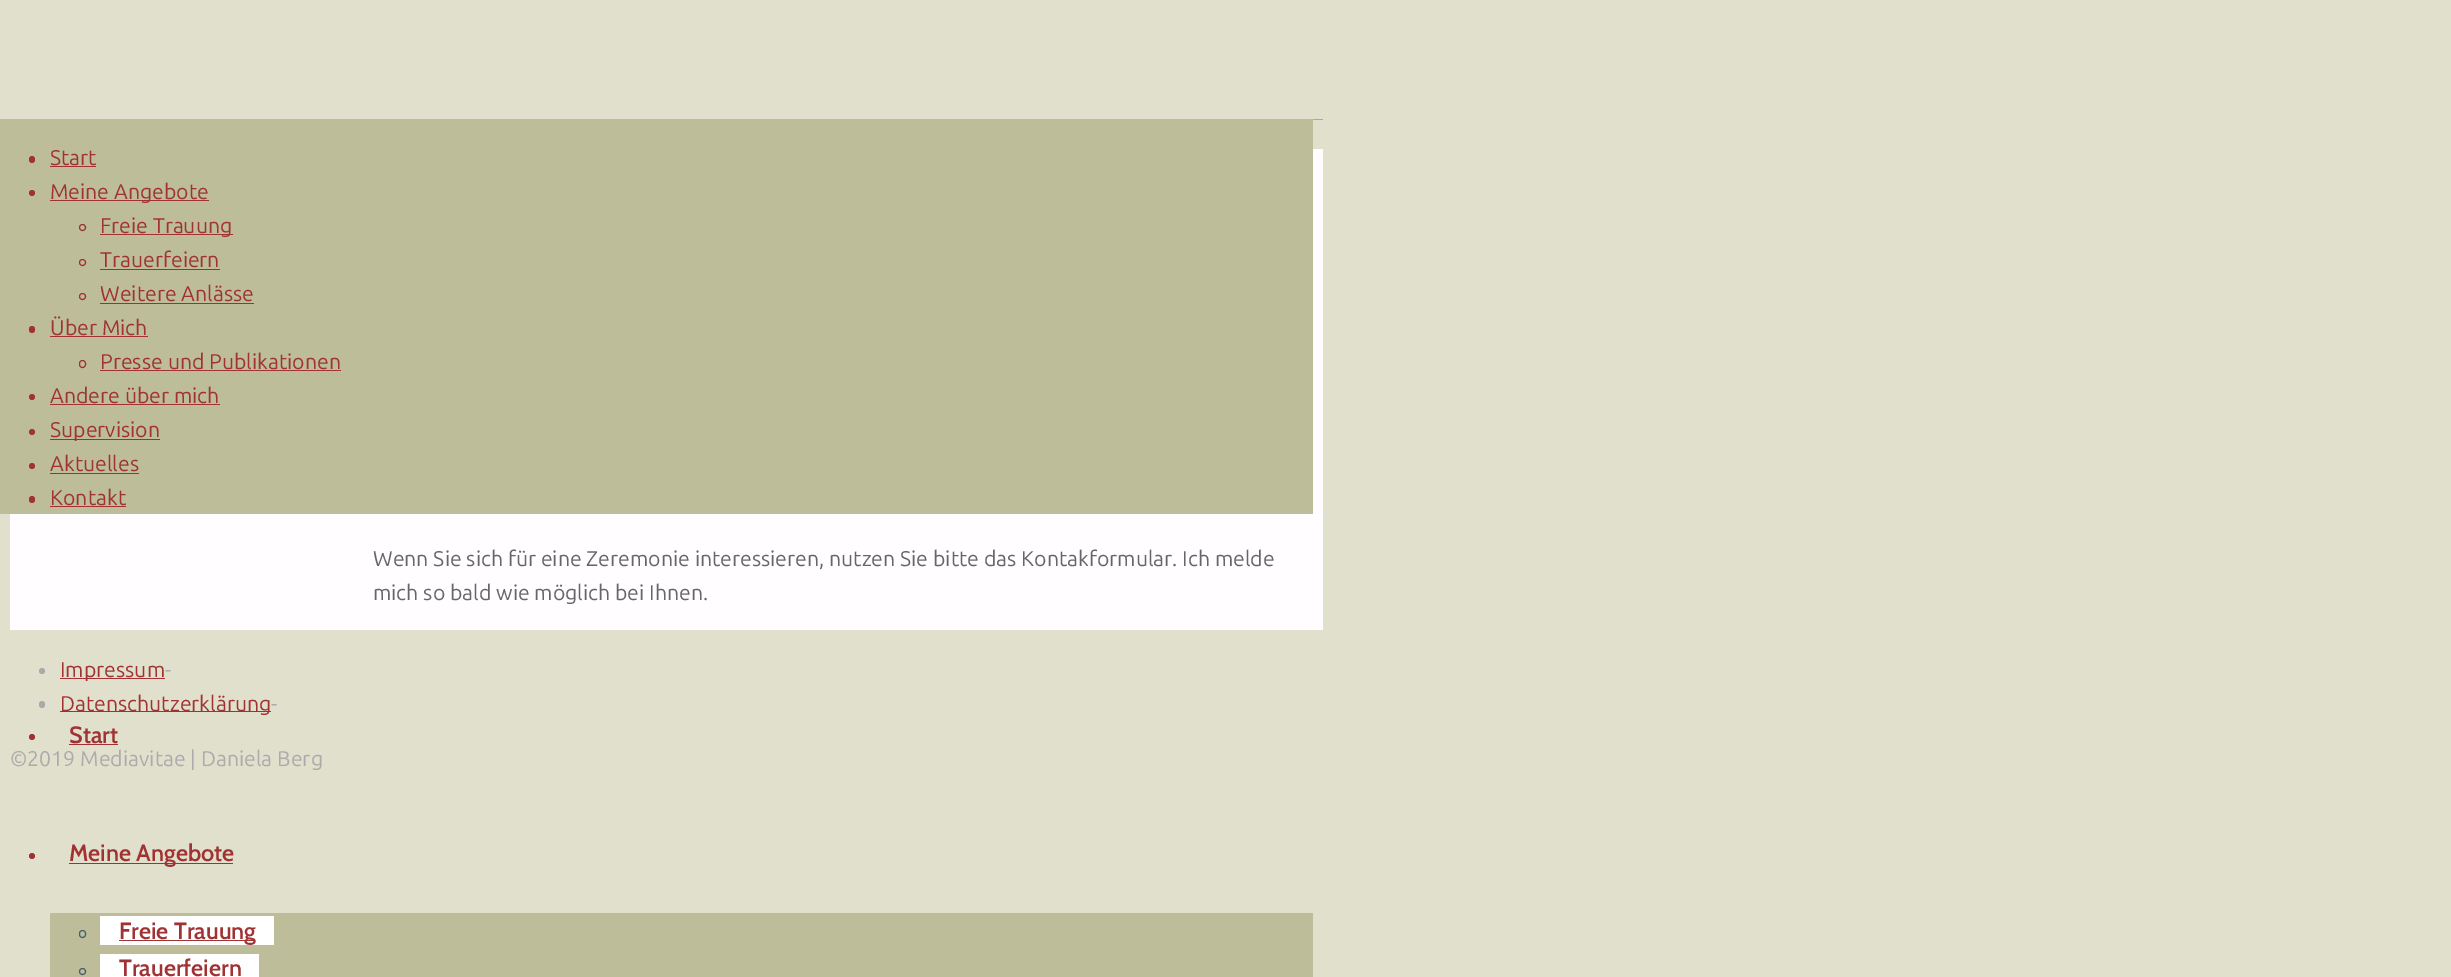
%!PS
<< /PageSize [2451 977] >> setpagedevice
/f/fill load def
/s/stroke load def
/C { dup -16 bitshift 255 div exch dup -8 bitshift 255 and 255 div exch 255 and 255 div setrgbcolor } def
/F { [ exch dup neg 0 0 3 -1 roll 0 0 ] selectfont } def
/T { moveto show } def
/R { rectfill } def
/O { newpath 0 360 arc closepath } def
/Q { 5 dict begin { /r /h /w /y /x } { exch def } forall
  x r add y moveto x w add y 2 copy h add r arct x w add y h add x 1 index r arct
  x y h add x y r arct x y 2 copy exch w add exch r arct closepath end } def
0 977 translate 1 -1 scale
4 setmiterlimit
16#E1E0CD C
0 0 2451 977 R
16#ACAD88 C
1313 119 10 1 R
16#FFFDFF C
10 149 1313 481 R
16#BDBE99 C
0 119 1313 395 R
16#A03234 C
29 156 6 7 3 Q f
/Ubuntu-Regular 21.25 F
(Start) 50 165 T
50 166 46 1 R
32 193 3 O f
50 200 159 1 R
(Meine Angebote) 50 199 T
82.5 227.5 3 O s
100 234 133 1 R
(Freie Trauung) 100 233 T
82.5 262.5 3 O s
(Trauerfeiern) 100 267 T
100 269 120 1 R
82.5 296.5 3 O s
(Weitere Anlässe) 100 301 T
100 303 154 1 R
29 326 6 7 3 Q f
(Über Mich) 50 335 T
50 336 98 1 R
79.5 360.5 6 7 3 Q s
(Presse und Publikationen) 100 369 T
100 370 241 1 R
32 397 3 O f
(Andere über mich) 50 403 T
50 404 170 1 R
32 432 3 O f
50 439 110 1 R
(Supervision) 50 437 T
32 466 3 O f
(Aktuelles) 50 471 T
50 473 89 1 R
29 496 6 7 3 Q f
(Kontakt) 50 505 T
50 506 76 1 R
32 737 3 O f
/Cabin-SemiBold 23.5 F
(Start) 69 743 T
69 744 49 1 R
32 856 3 O f
69 863 164 1 R
(Meine Angebote) 69 861 T
16#BDBE99 C
50 913 1263 64 R
16#495D6D C
79.5 930.5 6 7 3 Q s
16#FFFFFF C
100 916 174 29 R
16#A03234 C
119 940 136 1 R
(Freie Trauung) 119 939 T
16#495D6D C
82.5 971.5 3 O s
16#FFFFFF C
100 954 159 23 R
16#A03234 C
(Trauerfeiern) 119 976 T
/Ubuntu-Regular 21.25 F
16#666666 C
(Wenn Sie sich für eine Zeremonie interessieren, nutzen Sie bitte das Kontakformular. Ich melde) 373 566 T
(mich so bald wie möglich bei Ihnen.) 373 600 T
16#AAAAAA C
42 671 3 O f
16#A03234 C
60 678 105 1 R
(Impressum) 60 677 T
16#ABABAB C
(-) 165 677 T
16#AAAAAA C
39 701 6 7 3 Q f
16#A03234 C
60 711 211 1 R
(Datenschutzerklärung) 60 711 T
16#ABABAB C
(-) 271 711 T
(©2019 Mediavitae | Daniela Berg) 10 766 T
showpage
